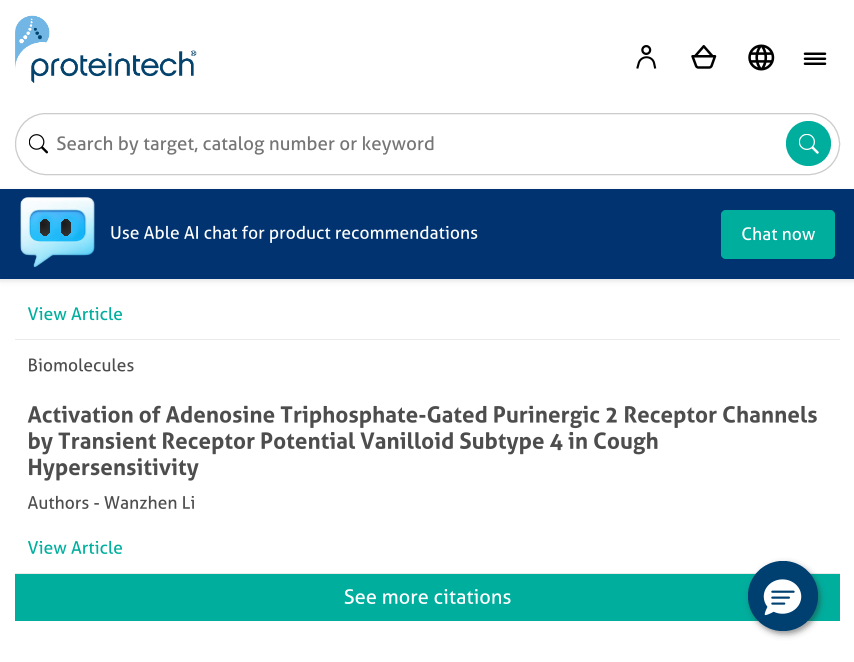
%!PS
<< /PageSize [854 662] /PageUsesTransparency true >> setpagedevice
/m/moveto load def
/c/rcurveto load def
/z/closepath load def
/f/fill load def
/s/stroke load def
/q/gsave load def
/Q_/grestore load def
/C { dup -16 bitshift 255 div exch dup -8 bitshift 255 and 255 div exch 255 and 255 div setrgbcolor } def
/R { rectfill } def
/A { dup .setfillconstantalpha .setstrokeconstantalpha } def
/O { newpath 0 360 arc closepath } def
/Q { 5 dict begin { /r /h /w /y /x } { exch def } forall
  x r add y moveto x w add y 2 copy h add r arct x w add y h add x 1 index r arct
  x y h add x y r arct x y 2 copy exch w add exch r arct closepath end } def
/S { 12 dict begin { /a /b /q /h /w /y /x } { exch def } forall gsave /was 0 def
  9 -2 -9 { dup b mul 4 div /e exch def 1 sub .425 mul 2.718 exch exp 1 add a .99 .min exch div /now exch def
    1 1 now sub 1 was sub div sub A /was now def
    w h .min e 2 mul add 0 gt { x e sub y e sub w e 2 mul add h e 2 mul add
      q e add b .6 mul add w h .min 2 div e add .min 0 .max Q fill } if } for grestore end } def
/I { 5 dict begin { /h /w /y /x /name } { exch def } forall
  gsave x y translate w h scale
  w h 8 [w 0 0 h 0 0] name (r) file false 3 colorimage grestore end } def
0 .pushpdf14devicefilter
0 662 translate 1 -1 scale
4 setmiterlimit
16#FFFFFF C
0 0 854 662 R
(1.rgb) 15 15 182 68 I
(2.rgb) 636 45 21 24 I
(3.rgb) 691 45 26 24 I
(4.rgb) 748 44 27 27 I
(5.rgb) 803 52 24 13 I
16#CCCCCC C
15.5 113.5 824 61 30.5 Q s
(6.rgb) 29 134 19 20 I
(7.rgb) 57 136 377 19 I
16#00AE9E C
808.5 143.5 22.5 O f
(8.rgb) 799 134 20 20 I
16#000000 C
0 191 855 90 0 2.5 .1 S
16#003370 C
0 189 854 90 R
(9.rgb) 20 197 75 71 I
q 45 219.5 m 3 0 5 3.5 5 8 c 0 4.5 -2 8 -5 8 c -3 0 -5 -3.5 -5 -8 c 0 -4.5 2 -8 5 -8 c z clip newpath 43 224 translate 13 13 scale
<< /ShadingType 3 /ColorSpace /DeviceRGB /Coords [0 0 0 0 0 1] /Extend [true true] /Function << /FunctionType 3 /Domain [0 1] /Functions [<< /FunctionType 2 /Domain [0 1] /C0 [.102 .102 .102] /C1 [.2 .2 .2] /N 1 >> << /FunctionType 2 /Domain [0 1] /C0 [.2 .2 .2] /C1 [.2 .2 .2] /N 1 >>] /Bounds [.9] /Encode [0 1 0 1] >> >> shfill Q_
q 66 219.5 m 3 0 5 3.5 5 8 c 0 4.5 -2 8 -5 8 c -3 0 -5 -3.5 -5 -8 c 0 -4.5 2 -8 5 -8 c z clip newpath 64 224 translate 13 13 scale
<< /ShadingType 3 /ColorSpace /DeviceRGB /Coords [0 0 0 0 0 1] /Extend [true true] /Function << /FunctionType 3 /Domain [0 1] /Functions [<< /FunctionType 2 /Domain [0 1] /C0 [.102 .102 .102] /C1 [.2 .2 .2] /N 1 >> << /FunctionType 2 /Domain [0 1] /C0 [.2 .2 .2] /C1 [.2 .2 .2] /N 1 >>] /Bounds [.9] /Encode [0 1 0 1] >> >> shfill Q_
(10.rgb) 111 225 367 18 I
16#00AE9E C
721 210 114 49 5 Q f
(11.rgb) 742 227 73 14 I
16#EAEAEA C
15 339 825 1 R
(12.rgb) 27 307 95 14 I
15 573 825 1 R
(13.rgb) 29 358 105 14 I
(14.rgb) 27 405 790 24 I
(15.rgb) 29 432 629 23 I
(16.rgb) 29 458 170 23 I
(17.rgb) 27 495 167 14 I
(18.rgb) 27 540 95 14 I
16#00AE9E C
15 574 825 47 R
(19.rgb) 344 589 167 15 I
16#2D2D2D C
750 564 70 70 35 3 .5 S
16#004071 C
783 596 35 O f
(20.rgb) 763 579 39 37 I
.poppdf14devicefilter showpage
